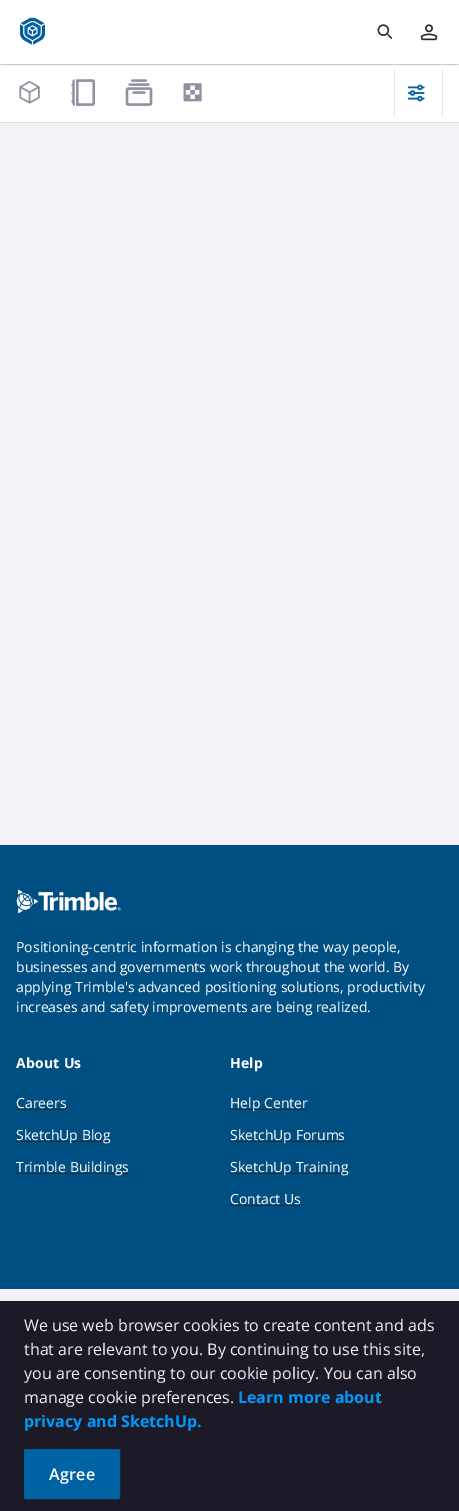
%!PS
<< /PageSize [459 1511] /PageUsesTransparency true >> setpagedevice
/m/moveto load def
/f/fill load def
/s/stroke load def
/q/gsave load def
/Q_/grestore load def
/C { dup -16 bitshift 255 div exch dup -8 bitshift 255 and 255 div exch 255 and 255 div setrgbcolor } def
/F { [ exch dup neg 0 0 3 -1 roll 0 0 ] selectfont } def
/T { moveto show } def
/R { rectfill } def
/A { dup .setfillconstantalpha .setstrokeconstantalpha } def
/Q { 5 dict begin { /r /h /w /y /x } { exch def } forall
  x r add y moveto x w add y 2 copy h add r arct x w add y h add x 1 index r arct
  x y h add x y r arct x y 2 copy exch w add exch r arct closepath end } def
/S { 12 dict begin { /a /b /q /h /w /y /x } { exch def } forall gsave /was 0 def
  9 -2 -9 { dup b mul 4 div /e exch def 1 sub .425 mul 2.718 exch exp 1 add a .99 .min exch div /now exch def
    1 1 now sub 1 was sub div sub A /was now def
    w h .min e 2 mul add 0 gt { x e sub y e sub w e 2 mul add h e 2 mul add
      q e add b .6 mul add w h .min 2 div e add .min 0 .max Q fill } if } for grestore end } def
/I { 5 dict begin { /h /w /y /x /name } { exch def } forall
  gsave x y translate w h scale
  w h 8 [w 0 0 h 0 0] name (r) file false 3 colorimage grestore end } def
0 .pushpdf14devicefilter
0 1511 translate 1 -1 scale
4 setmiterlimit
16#F1F1F6 C
0 0 459 1511 R
16#FFFFFF C
0 65 459 57 R
16#E0E1E9 C
0 64 459 1 R
16#90939F C
2 4 455 60 0 1 1 S
16#FFFFFF C
0 0 459 64 R
(1.rgb) 20 17 25 28 I
(2.rgb) 377 24 16 15 I
(3.rgb) 420 24 18 17 I
16#E0E1E9 C
0 122 459 1 R
(4.rgb) 19 81 21 23 I
(5.rgb) 71 79 24 27 I
(6.rgb) 125 79 28 27 I
(7.rgb) 183 83 19 19 I
442 70 1 47 R
394 70 1 47 R
(8.rgb) 407 84 18 18 I
16#004F83 C
0 845 459 444 R
(9.rgb) 16 889 105 25 I
/OpenSans-Regular 14 F
16#FFFFFF C
(Positioning-centric information is changing the way people,) 16 952 T
(businesses and governments work throughout the world. By) 16 972 T
(applying Trimble's advanced positioning solutions, productivity) 16 992 T
(increases and safety improvements are being realized.) 16 1012 T
/OpenSans-Bold 14 F
16 1068 m .25 0 (About Us) ashow
/OpenSans-Regular 14 F
(Careers) 16 1108 T
16#252A2E C
16 1109 50 1 R
16 1141 94 1 R
16#FFFFFF C
(SketchUp Blog) 16 1140 T
16#252A2E C
16 1173 113 1 R
16#FFFFFF C
(Trimble Buildings) 16 1172 T
/OpenSans-Bold 14 F
230 1068 m .25 0 (Help) ashow
16#252A2E C
230 1109 77 1 R
/OpenSans-Regular 14 F
16#FFFFFF C
(Help Center) 230 1108 T
16#252A2E C
230 1141 115 1 R
16#FFFFFF C
(SketchUp Forums) 230 1140 T
16#252A2E C
230 1173 118 1 R
16#FFFFFF C
(SketchUp Training) 230 1172 T
(Contact Us) 230 1204 T
16#252A2E C
230 1205 70 1 R
16#1B1A26 C
0 1301 459 210 R
/OpenSans-Regular 16 F
16#F1F1F6 C
(We use web browser cookies to create content and ads) 24 1331 T
(that are relevant to you. By continuing to use this site,) 24 1355 T
(you are consenting to our cookie policy. You can also) 24 1379 T
(manage cookie preferences.) 24 1403 T
/OpenSans-Bold 16 F
16#0099FE C
(Learn more about) 238 1403 T
(privacy and SketchUp.) 24 1427 T
16#0063A3 C
24.5 1449.5 95 49 1.5 Q q f Q_
s
/OpenSans-SemiBold 16 F
16#FFFFFF C
49 1480 m .25 0 (Agree) ashow
.poppdf14devicefilter showpage
